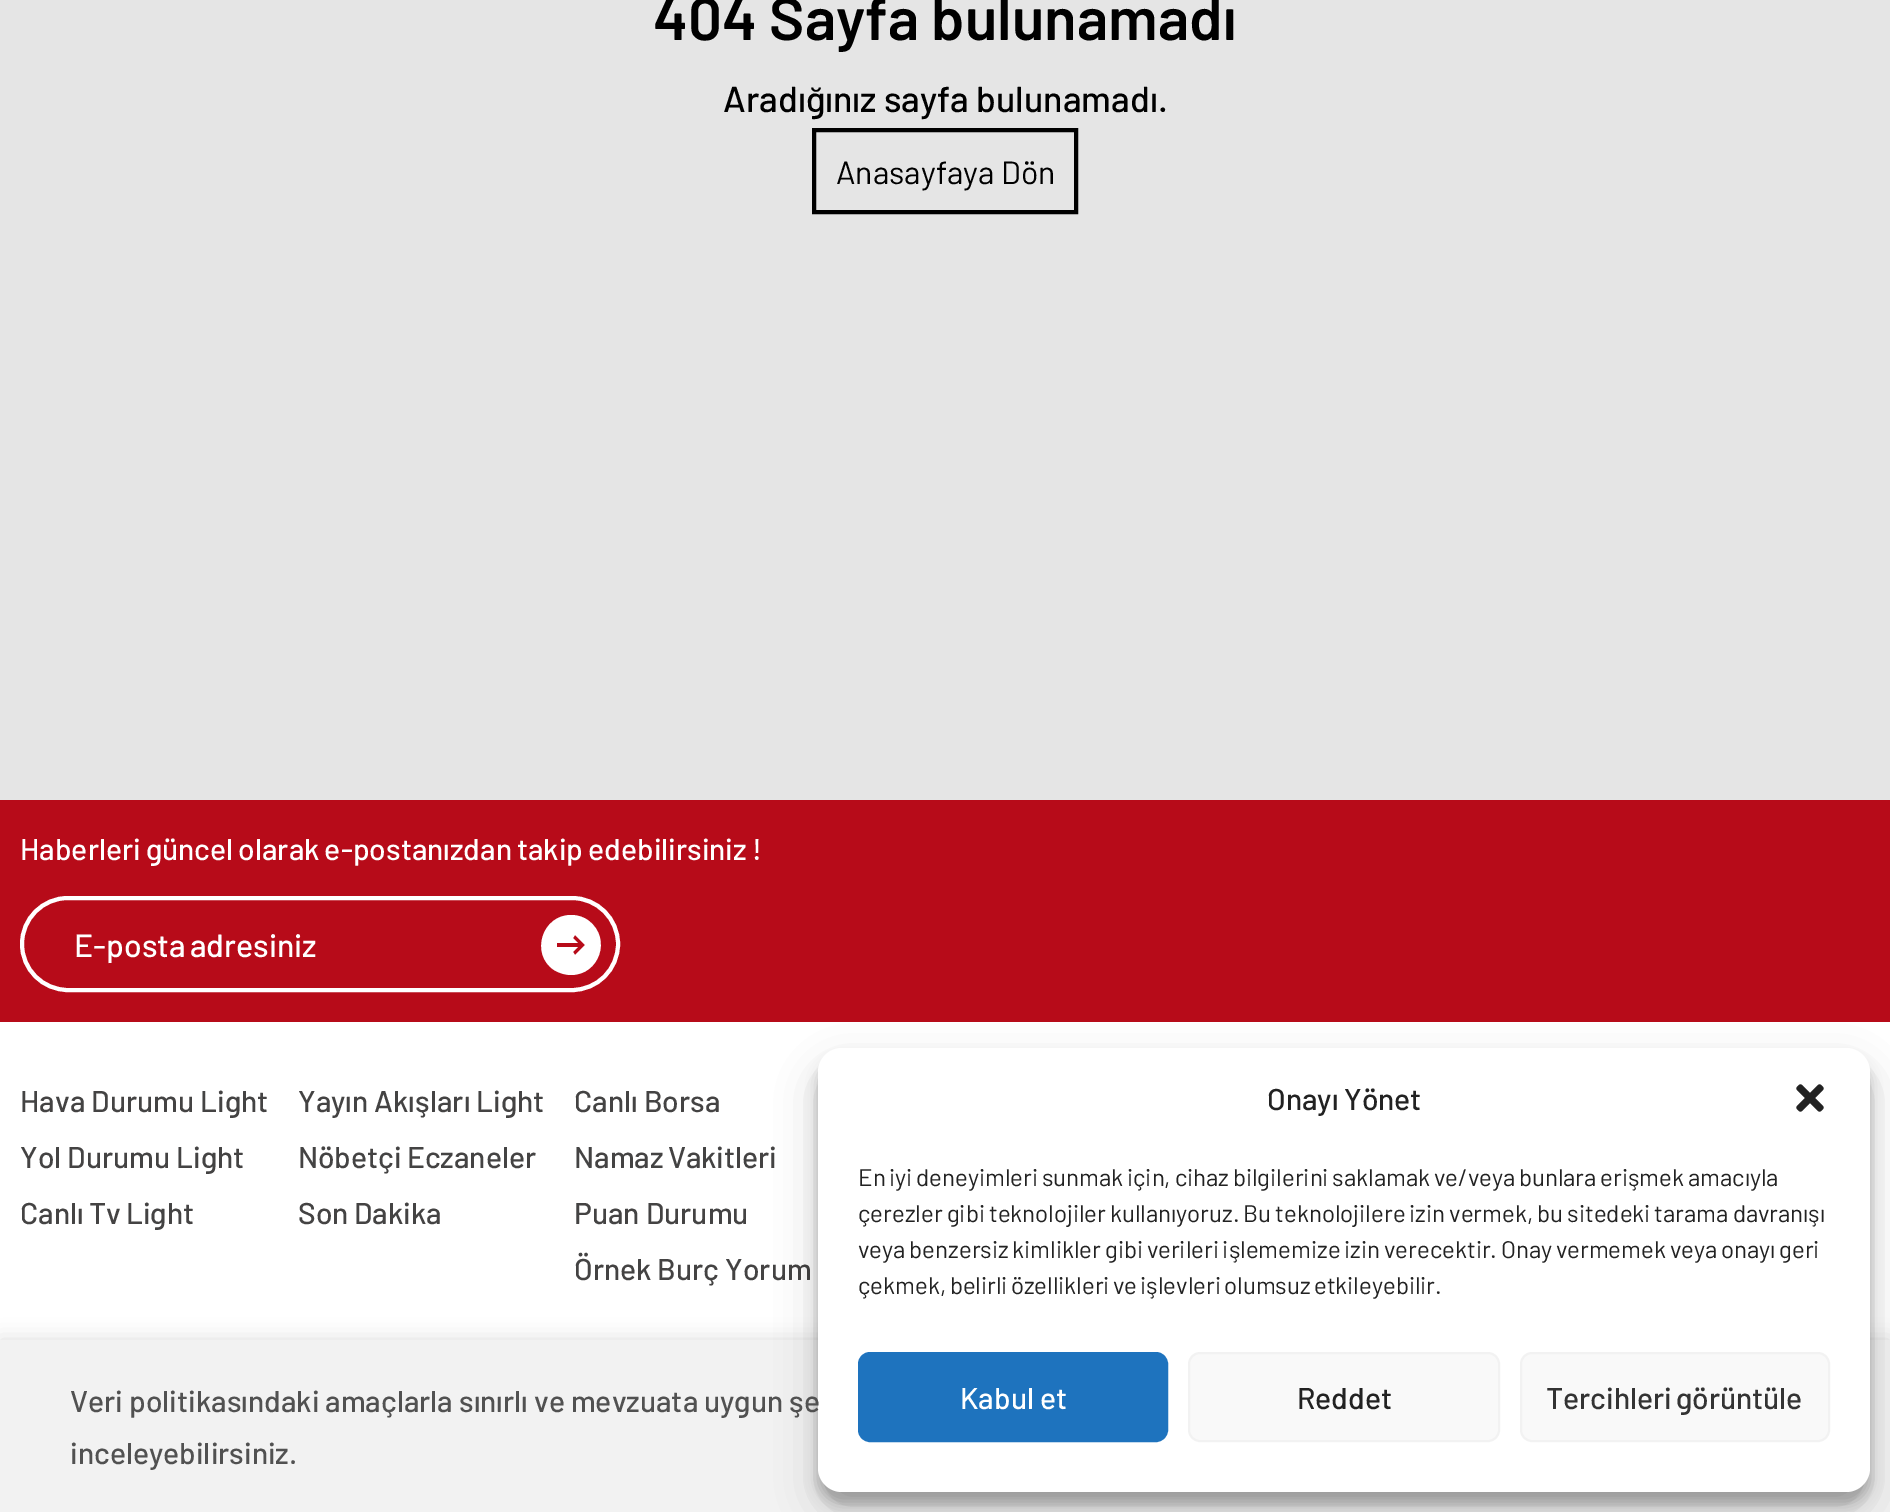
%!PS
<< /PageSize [1890 1512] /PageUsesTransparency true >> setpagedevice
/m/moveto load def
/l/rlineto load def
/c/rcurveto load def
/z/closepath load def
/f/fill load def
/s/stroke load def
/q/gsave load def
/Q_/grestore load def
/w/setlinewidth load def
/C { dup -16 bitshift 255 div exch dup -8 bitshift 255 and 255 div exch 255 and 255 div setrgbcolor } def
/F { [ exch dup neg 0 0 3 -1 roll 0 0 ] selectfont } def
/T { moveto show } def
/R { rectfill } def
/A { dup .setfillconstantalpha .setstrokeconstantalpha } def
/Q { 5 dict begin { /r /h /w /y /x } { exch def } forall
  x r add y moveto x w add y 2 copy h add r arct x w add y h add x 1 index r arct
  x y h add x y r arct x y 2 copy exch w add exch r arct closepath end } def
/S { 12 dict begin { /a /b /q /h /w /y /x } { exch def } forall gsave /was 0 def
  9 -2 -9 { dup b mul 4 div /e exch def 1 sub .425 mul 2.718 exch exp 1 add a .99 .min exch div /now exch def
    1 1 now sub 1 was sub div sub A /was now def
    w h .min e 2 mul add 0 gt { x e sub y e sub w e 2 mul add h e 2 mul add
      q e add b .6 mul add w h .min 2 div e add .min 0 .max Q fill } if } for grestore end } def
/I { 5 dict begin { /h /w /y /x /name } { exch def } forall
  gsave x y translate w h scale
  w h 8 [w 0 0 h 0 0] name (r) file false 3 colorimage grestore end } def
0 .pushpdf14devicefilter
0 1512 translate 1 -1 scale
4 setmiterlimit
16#E5E5E5 C
0 0 1890 1512 R
/Barlow-SemiBold 60 F
16#000000 C
(404 Sayfa bulunamadı) 653 40 T
/Barlow-Medium 36 F
(Aradığınız sayfa bulunamadı.) 723 112 T
4 w
814 130 262 82 rectstroke
/Barlow-Regular 32 F
(Anasayfaya Dön) 836 184 T
16#FFFFFF C
0 1022 1890 318 R
16#B70B19 C
0 800 1890 222 R
/Barlow-Medium 30 F
16#FFFFFF C
20 860 m -1 0 32 (Haberleri güncel olarak e-postanızdan takip edebilirsiniz !) widthshow
22 898 596 92 46 Q s
/Barlow-Medium 32 F
74 957 m -2 0 32 (E-posta adresiniz) widthshow
571 975 m -6 0 -12 -2 -17 -5 c -24 -16 -12 -55 17 -55 c 7 0 13 2 18 6 c 23 18 10 54 -18 54 c z 557 943 m 0 4 l 21 0 l -5 5 l 2 3 l 10 -10 l -10 -10 l -2 3 l 5 5 l z f
/Barlow-Medium 30 F
16#444343 C
(Hava Durumu Light) 20 1112 T
(Yol Durumu Light) 20 1168 T
20 1224 m -1 0 32 (Canlı Tv Light) widthshow
(Yayın Akışları Light) 298 1112 T
298 1168 m -1 0 32 (Nöbetçi Eczaneler) widthshow
298 1224 m -1 0 32 (Son Dakika) widthshow
(Canlı Borsa) 574 1112 T
574 1168 m -2 0 32 (Namaz Vakitleri) widthshow
(Puan Durumu) 574 1224 T
(Örnek Burç Yorum) 574 1280 T
16#222222 C
0 1340 1890 172 0 10 .16 S
16#F2F2F2 C
0 1340 1890 172 R
16#000000 C
818 1060 1052 444 24 6 .23 S
818 1068 1052 444 24 20 .19 S
16#FFFFFF C
818 1048 1052 444 24 Q f
16#222222 C
(Onayı Yönet) 1267 1110 T
(1.rgb) 1796 1084 28 28 I
/Barlow-Regular 24 F
858 1186 m -1.1 0 32 (En iyi deneyimleri sunmak için, cihaz bilgilerini saklamak ve/veya bunlara erişmek amacıyla) widthshow
858 1222 m -.75 0 32 (çerezler gibi teknolojiler kullanıyoruz. Bu teknolojilere izin vermek, bu sitedeki tarama davranışı) widthshow
858 1258 m -1.1 0 32 (veya benzersiz kimlikler gibi verileri işlememize izin verecektir. Onay vermemek veya onayı geri) widthshow
858 1294 m -1.5 0 32 (çekmek, belirli özellikleri ve işlevleri olumsuz etkileyebilir.) widthshow
16#1E73BE C
859 1353 308 88 11 Q q f Q_
2 w
s
/Barlow-Medium 30 F
16#FFFFFF C
(Kabul et) 960 1409 T
16#F9F9F9 C
1189 1353 310 88 11 Q q f Q_
16#F2F2F2 C
s
16#222222 C
(Reddet) 1297 1409 T
16#F9F9F9 C
1521 1353 308 88 11 Q q f Q_
16#F2F2F2 C
s
16#333333 C
1546 1409 m -2 0 32 (Tercihleri görüntüle) widthshow
16#515151 C
(Veri politikasındaki amaçlarla sınırlı ve mevzuata uygun şe) 70 1412 T
(inceleyebilirsiniz.) 70 1464 T
.poppdf14devicefilter showpage
